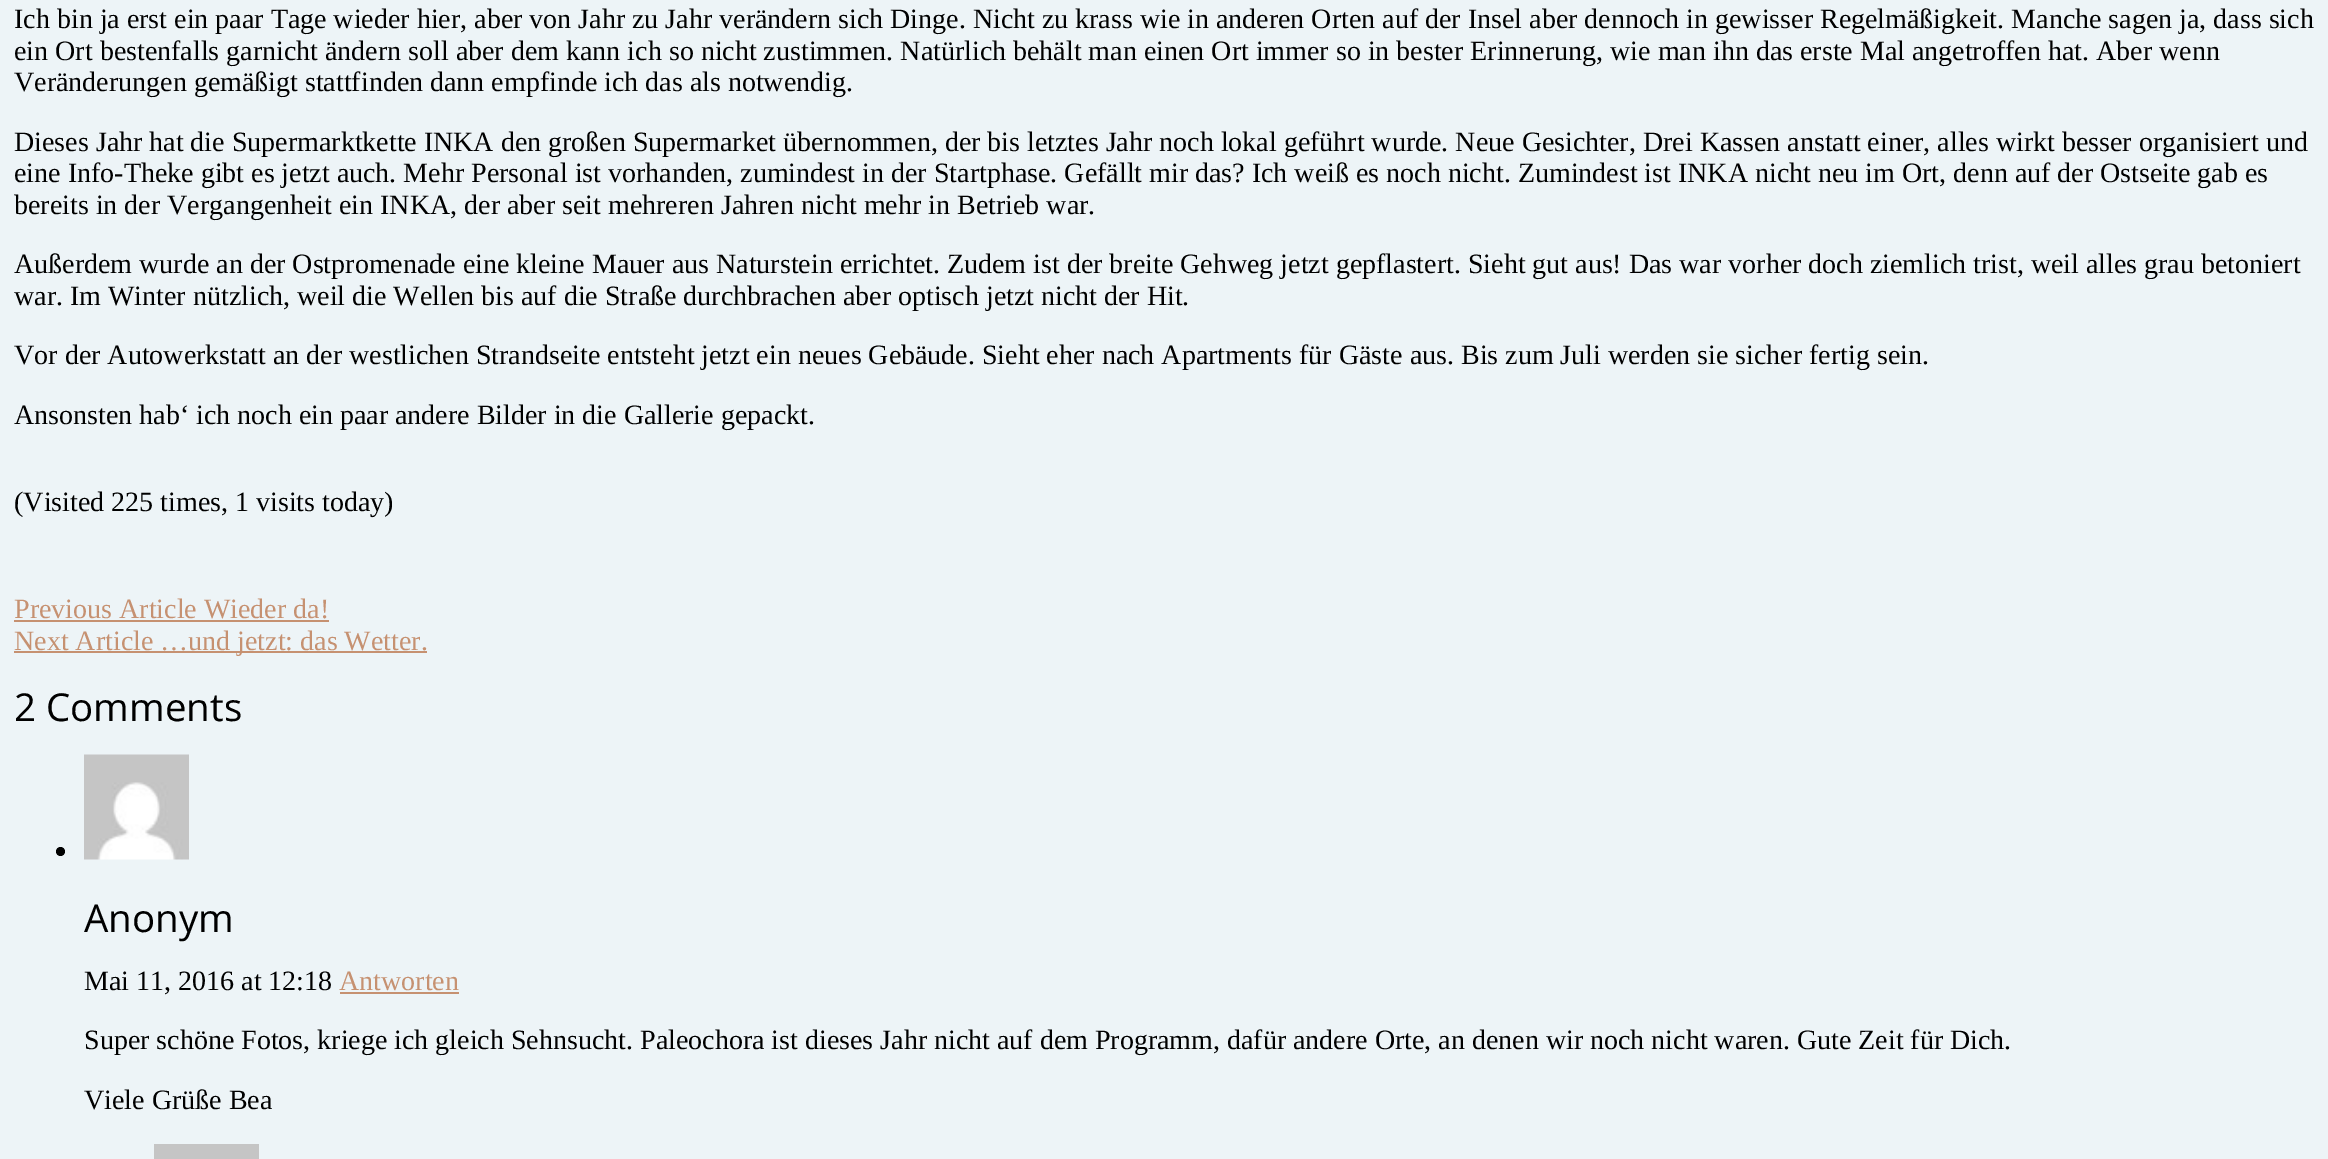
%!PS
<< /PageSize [2328 1159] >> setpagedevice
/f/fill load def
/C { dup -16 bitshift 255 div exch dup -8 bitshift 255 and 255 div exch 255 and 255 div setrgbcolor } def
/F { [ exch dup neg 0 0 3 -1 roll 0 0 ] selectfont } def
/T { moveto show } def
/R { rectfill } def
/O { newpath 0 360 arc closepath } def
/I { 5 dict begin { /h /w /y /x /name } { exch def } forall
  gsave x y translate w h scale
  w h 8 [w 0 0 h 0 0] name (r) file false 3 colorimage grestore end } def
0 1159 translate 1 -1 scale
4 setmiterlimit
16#EDF4F7 C
0 0 2328 1159 R
/LiberationSerif-Regular 28 F
16#000000 C
(Ich bin ja erst ein paar Tage wieder hier, aber von Jahr zu Jahr verändern sich Dinge. Nicht zu krass wie in anderen Orten auf der Insel aber dennoch in gewisser Regelmäßigkeit. Manche sagen ja, dass sich) 14 28 T
(ein Ort bestenfalls garnicht ändern soll aber dem kann ich so nicht zustimmen. Natürlich behält man einen Ort immer so in bester Erinnerung, wie man ihn das erste Mal angetroffen hat. Aber wenn) 14 60 T
(Veränderungen gemäßigt stattfinden dann empfinde ich das als notwendig.) 14 91 T
(Dieses Jahr hat die Supermarktkette INKA den großen Supermarket übernommen, der bis letztes Jahr noch lokal geführt wurde. Neue Gesichter, Drei Kassen anstatt einer, alles wirkt besser organisiert und) 14 151 T
(eine Info-Theke gibt es jetzt auch. Mehr Personal ist vorhanden, zumindest in der Startphase. Gefällt mir das? Ich weiß es noch nicht. Zumindest ist INKA nicht neu im Ort, denn auf der Ostseite gab es) 14 182 T
(bereits in der Vergangenheit ein INKA, der aber seit mehreren Jahren nicht mehr in Betrieb war.) 14 214 T
(Außerdem wurde an der Ostpromenade eine kleine Mauer aus Naturstein errichtet. Zudem ist der breite Gehweg jetzt gepflastert. Sieht gut aus! Das war vorher doch ziemlich trist, weil alles grau betoniert) 14 273 T
(war. Im Winter nützlich, weil die Wellen bis auf die Straße durchbrachen aber optisch jetzt nicht der Hit.) 14 305 T
(Vor der Autowerkstatt an der westlichen Strandseite entsteht jetzt ein neues Gebäude. Sieht eher nach Apartments für Gäste aus. Bis zum Juli werden sie sicher fertig sein.) 14 364 T
(Ansonsten hab‘ ich noch ein paar andere Bilder in die Gallerie gepackt.) 14 424 T
(\(Visited 225 times, 1 visits today\)) 14 511 T
16#C69171 C
(Previous Article Wieder da!) 14 618 T
14 620 315 2 R
14 651 413 2 R
(Next Article …und jetzt: das Wetter.) 14 650 T
/OpenSans-Regular 38.5 F
16#000000 C
(2 Comments) 14 721 T
60.5 851.5 4.5 O f
(1.rgb) 84 754 105 106 I
(Anonym) 84 932 T
/LiberationSerif-Regular 28 F
(Mai 11, 2016 at 12:18) 84 990 T
16#C69171 C
(Antworten) 339 990 T
340 992 119 2 R
16#000000 C
(Super schöne Fotos, kriege ich gleich Sehnsucht. Paleochora ist dieses Jahr nicht auf dem Programm, dafür andere Orte, an denen wir noch nicht waren. Gute Zeit für Dich.) 84 1049 T
(Viele Grüße Bea) 84 1109 T
16#C5C5C5 C
154 1144 105 15 R
showpage
